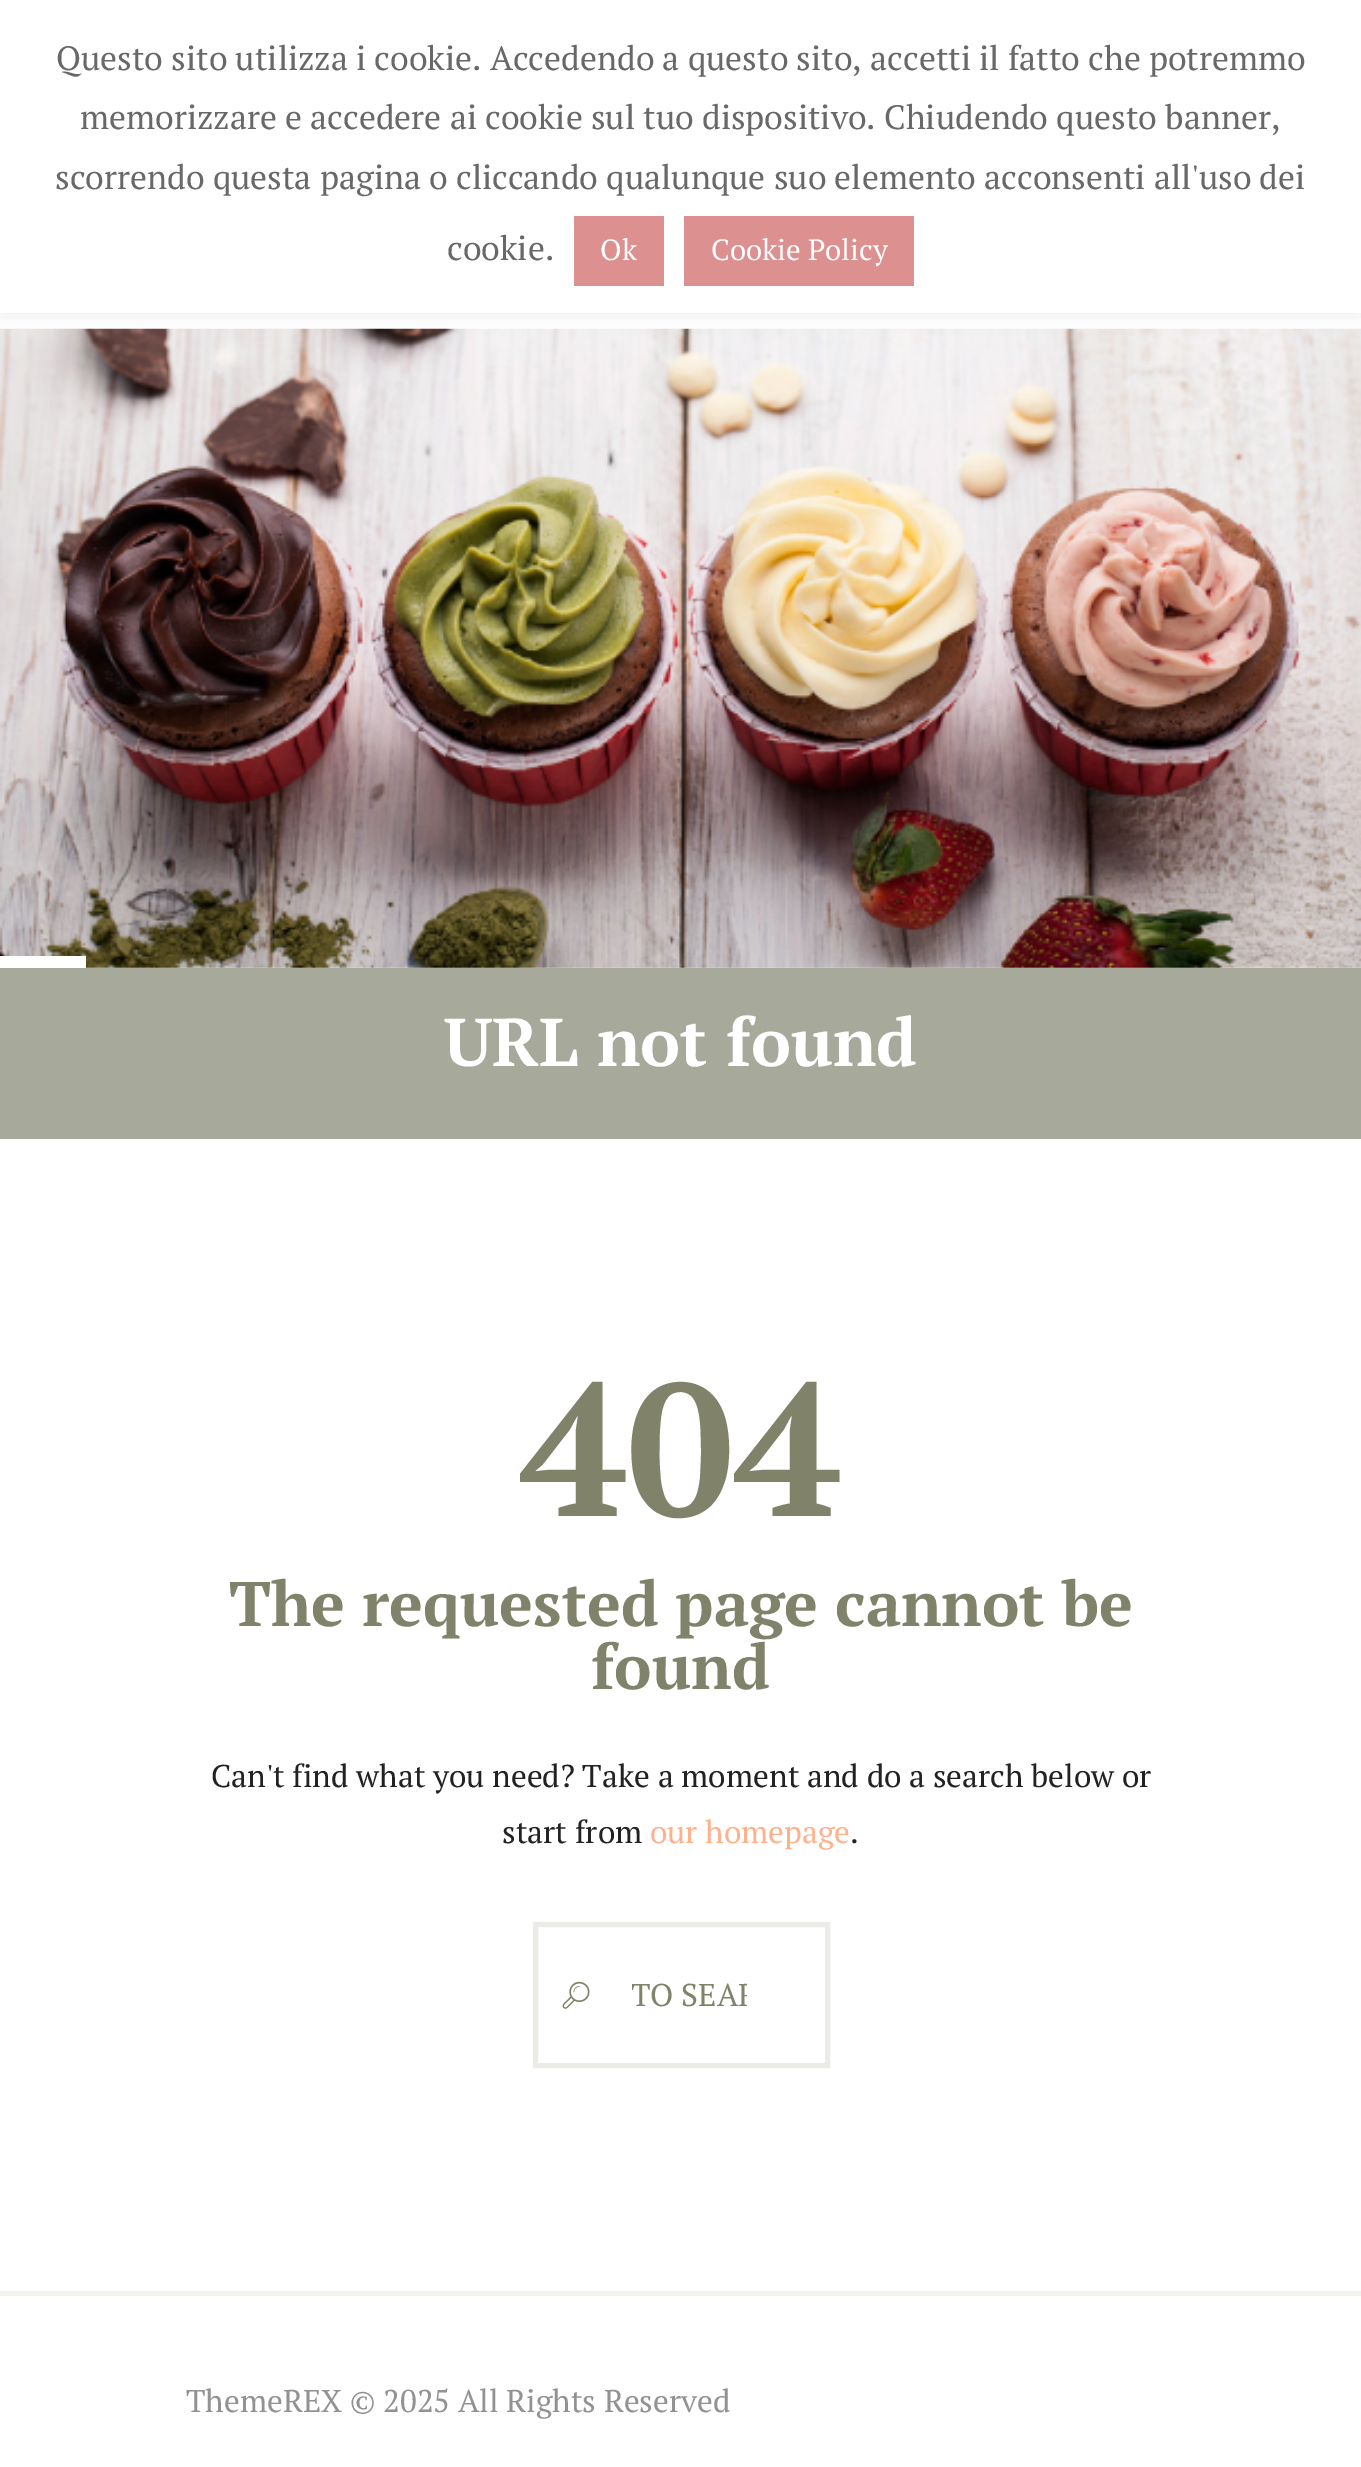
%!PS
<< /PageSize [1361 2467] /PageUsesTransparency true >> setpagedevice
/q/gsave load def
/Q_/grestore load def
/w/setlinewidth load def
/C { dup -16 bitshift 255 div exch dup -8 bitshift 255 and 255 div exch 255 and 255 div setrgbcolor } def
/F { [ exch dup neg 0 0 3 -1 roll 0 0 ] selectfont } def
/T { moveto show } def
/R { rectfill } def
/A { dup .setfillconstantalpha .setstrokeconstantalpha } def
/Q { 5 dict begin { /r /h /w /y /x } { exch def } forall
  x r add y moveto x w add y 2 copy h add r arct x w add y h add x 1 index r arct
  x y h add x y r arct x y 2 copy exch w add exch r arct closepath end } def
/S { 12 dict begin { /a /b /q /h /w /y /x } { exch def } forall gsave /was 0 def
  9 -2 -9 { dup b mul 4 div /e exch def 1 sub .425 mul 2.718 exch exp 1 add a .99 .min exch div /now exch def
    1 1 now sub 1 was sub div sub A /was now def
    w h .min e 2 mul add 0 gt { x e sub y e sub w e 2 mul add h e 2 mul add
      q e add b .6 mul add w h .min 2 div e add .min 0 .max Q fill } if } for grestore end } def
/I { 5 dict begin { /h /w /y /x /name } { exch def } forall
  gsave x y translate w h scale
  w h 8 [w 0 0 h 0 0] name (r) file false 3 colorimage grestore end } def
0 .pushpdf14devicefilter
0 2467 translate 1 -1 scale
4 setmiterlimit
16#FFFFFF C
0 0 1361 2467 R
(1.rgb) 0 328 1361 640 I
16#ACABAB C
0 -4 1361 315 0 11 .3 S
16#FFFFFF C
0 0 1361 313 R
/PTSerif-Regular 33.75 F
16#686868 C
(Questo sito utilizza i cookie. Accedendo a questo sito, accetti il fatto che potremmo) 56 70 T
(memorizzare e accedere ai cookie sul tuo dispositivo. Chiudendo questo banner,) 80 129 T
(scorrendo questa pagina o cliccando qualunque suo elemento acconsenti all'uso dei) 55 189 T
(cookie.) 447 260 T
16#DD9090 C
574 216 90 70 R
/PTSerif-Regular 29.25 F
16#FFFFFF C
(Ok) 600 260 T
16#DD9090 C
684 216 230 70 R
16#FFFFFF C
(Cookie Policy) 711 260 T
0 956 86 12 R
16#A7A99A C
0 968 1361 171 R
/PTSerif-Bold 67.5 F
16#FFFFFF C
(URL not found) 444 1066 T
/PTSerif-Bold 189 F
16#808369 C
(404) 520 1516 T
/PTSerif-Bold 63 F
(The requested page cannot be) 229 1626 T
(found) 591 1689 T
/PTSerif-Regular 31.5 F
16#222222 C
(Can't find what you need? Take a moment and do a search below or) 211 1787 T
(start from) 502 1843 T
16#FFB18B C
(our homepage) 650 1843 T
16#222222 C
(.) 850 1843 T
16#EBEBE7 C
5 w
535.5 1924.5 292 141 rectstroke
(2.rgb) 562 1981 28 28 I
q
632 1973 115 43 rectclip
16#808369 C
(TO SEAR) 631 2006 T
Q_
16#F3F1EC C
0 2291 1361 5 R
16#929292 C
(ThemeREX © 2025 All Rights Reserved) 186 2412 T
.poppdf14devicefilter showpage
